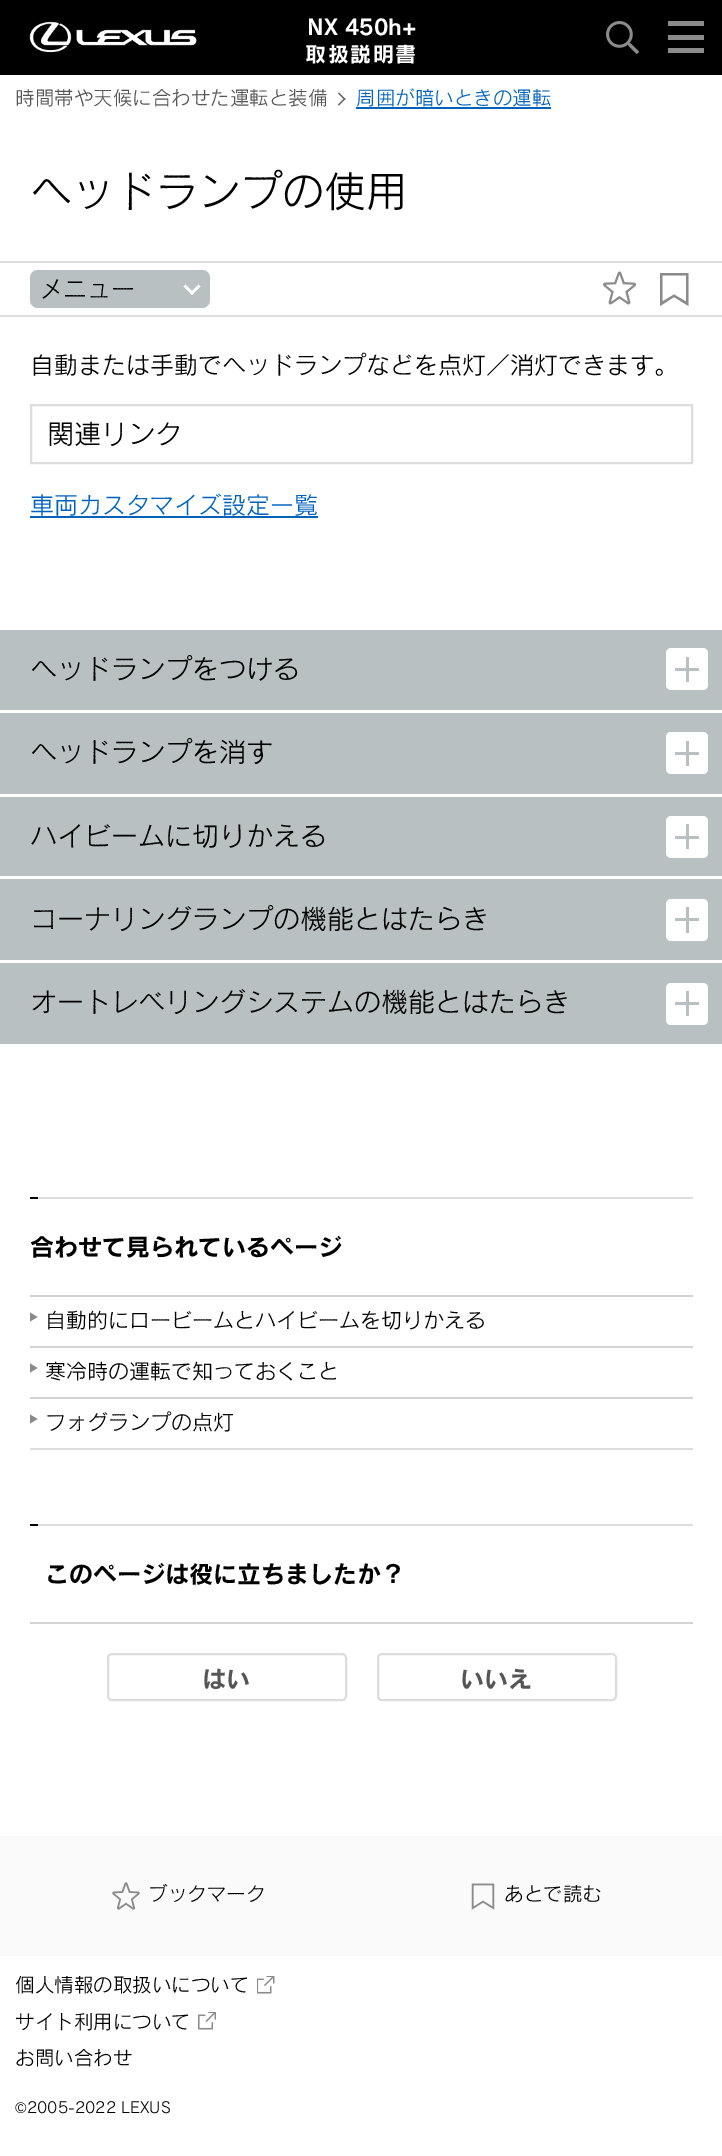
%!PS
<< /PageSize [722 2156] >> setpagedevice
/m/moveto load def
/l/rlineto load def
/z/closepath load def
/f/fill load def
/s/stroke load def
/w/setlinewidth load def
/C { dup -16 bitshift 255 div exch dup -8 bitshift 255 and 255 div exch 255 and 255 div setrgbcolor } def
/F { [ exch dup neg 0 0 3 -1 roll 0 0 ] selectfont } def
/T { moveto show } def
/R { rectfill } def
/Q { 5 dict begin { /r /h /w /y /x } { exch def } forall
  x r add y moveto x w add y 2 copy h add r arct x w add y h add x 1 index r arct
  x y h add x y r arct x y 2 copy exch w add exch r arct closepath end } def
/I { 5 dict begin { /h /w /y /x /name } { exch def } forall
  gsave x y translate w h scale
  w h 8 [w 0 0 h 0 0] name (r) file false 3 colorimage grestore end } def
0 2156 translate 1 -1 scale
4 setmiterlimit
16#FFFFFF C
0 0 722 2156 R
16#000000 C
0 0 722 75 R
(1.rgb) 29 21 168 32 I
/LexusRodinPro-Bold 21 F
16#FFFFFF C
(NX 450h+) 307 35 T
305 62 m 1.5 0 (取扱説明書) ashow
(2.rgb) 606 21 33 33 I
16#8B8B8B C
668 21 36 5 R
668 35 36 5 R
668 48 36 5 R
/LexusRodinPro-Medium 19.5 F
16#555555 C
(時間帯や天候に合わせた運転と装備) 15 105 T
16#666666 C
339 92.5 m 6.5 6.5 l -1 1 l -6.5 -6.5 l z f
344.5 98 m 1 1 l -6.5 6.5 l -1 -1 l z f
16#0062BA C
(周囲が暗いときの運転) 356 105 T
356 107 195 2 R
/LexusRodinPro-Medium 42 F
16#000000 C
(ヘッドランプの使用) 30 207 T
16#DDDDDD C
0 261 722 2 R
0 315 722 2 R
16#B9C0C2 C
30 270 180 38 8 Q f
/LexusRodinPro-Medium 24 F
16#000000 C
(メニュー) 39 298 T
16#FFFFFF C
200.5 286.5 m -8.5 8.5 l -2 -2 l 8.5 -8.5 l z f
194 293 m -2 2 l -8.5 -8.5 l 2 -2 l z f
(3.rgb) 603 271 33 34 I
16#8B8B8B C
686 275.5 m 0 26 l -12 -7 l -11.5 7 l 0 -26 l 23.5 0 l 688.5 273 m -28.5 0 l 0 33 l 14 -9 l 14.5 9 l z f
16#000000 C
(自動または手動でヘッドランプなどを点灯／消灯できます。) 30 374 T
16#DDDDDD C
2 w
31 405 661 58 rectstroke
/LexusRodinPro-Medium 27 F
16#000000 C
(関連リンク) 47 444 T
/LexusRodinPro-Medium 24 F
16#0062BA C
(車両カスタマイズ設定一覧) 30 514 T
30 516 288 2 R
16#B9C0C2 C
0 630 722 80 R
/LexusRodinPro-Medium 27 F
16#000000 C
(ヘッドランプをつける) 30 679 T
16#FFFFFF C
666 648 42 42 5 Q f
16#B9C0C2 C
675 668 24 3 R
686 657 3 25 R
0 713 722 81 R
16#000000 C
(ヘッドランプを消す) 30 762 T
16#FFFFFF C
666 732 42 42 5 Q f
16#B9C0C2 C
675 752 24 3 R
686 741 3 25 R
0 797 722 79 R
16#000000 C
(ハイビームに切りかえる) 30 846 T
16#FFFFFF C
666 816 42 42 5 Q f
16#B9C0C2 C
675 836 24 3 R
686 824 3 25 R
0 879 722 81 R
16#000000 C
(コーナリングランプの機能とはたらき) 30 929 T
16#FFFFFF C
666 899 42 42 5 Q f
16#B9C0C2 C
675 918 24 3 R
686 907 3 26 R
0 963 722 81 R
16#000000 C
(オートレベリングシステムの機能とはたらき) 30 1012 T
16#FFFFFF C
666 983 42 42 5 Q f
16#B9C0C2 C
675 1002 24 3 R
686 991 3 25 R
16#DDDDDD C
30 1197 663 2 R
30 1448 663 2 R
16#000000 C
30 1197 8 2 R
/LexusRodinPro-Bold 24 F
(合わせて見られているページ) 30 1256 T
16#D3D3D3 C
30 1295 663 2 R
16#8B8B8B C
30 1321.5 m 0 -9 l 7.5 4.5 l z f
/LexusRodinPro-Medium 21 F
16#000000 C
(自動的にロービームとハイビームを切りかえる) 45 1328 T
16#D3D3D3 C
30 1346 663 2 R
16#8B8B8B C
30 1372.5 m 0 -9 l 7.5 4.5 l z f
16#000000 C
(寒冷時の運転で知っておくこと) 45 1379 T
16#D3D3D3 C
30 1397 663 2 R
16#8B8B8B C
30 1423.5 m 0 -9 l 7.5 4.5 l z f
16#000000 C
(フォグランプの点灯) 45 1430 T
16#DDDDDD C
30 1524 663 2 R
16#000000 C
30 1524 8 2 R
/LexusRodinPro-Bold 24 F
(このページは役に立ちましたか？) 45 1583 T
16#D3D3D3 C
30 1622 663 2 R
16#DDDDDD C
108 1654 238 46 4 Q s
16#555555 C
(はい) 202 1688 T
16#DDDDDD C
378 1654 238 46 4 Q s
16#555555 C
(いいえ) 460 1688 T
16#FAFAFA C
0 1836 722 120 R
(4.rgb) 112 1882 28 28 I
/LexusRodinPro-Medium 19.5 F
16#000000 C
(ブックマーク) 148 1901 T
(5.rgb) 471 1883 24 27 I
(あとで読む) 504 1901 T
(個人情報の取扱いについて) 15 1992 T
(6.rgb) 257 1976 18 18 I
(サイト利用について) 15 2029 T
(7.rgb) 198 2012 18 18 I
(お問い合わせ) 15 2065 T
/LexusRodinPro-Medium 15 F
(©2005-2022 LEXUS) 15 2113 T
showpage
